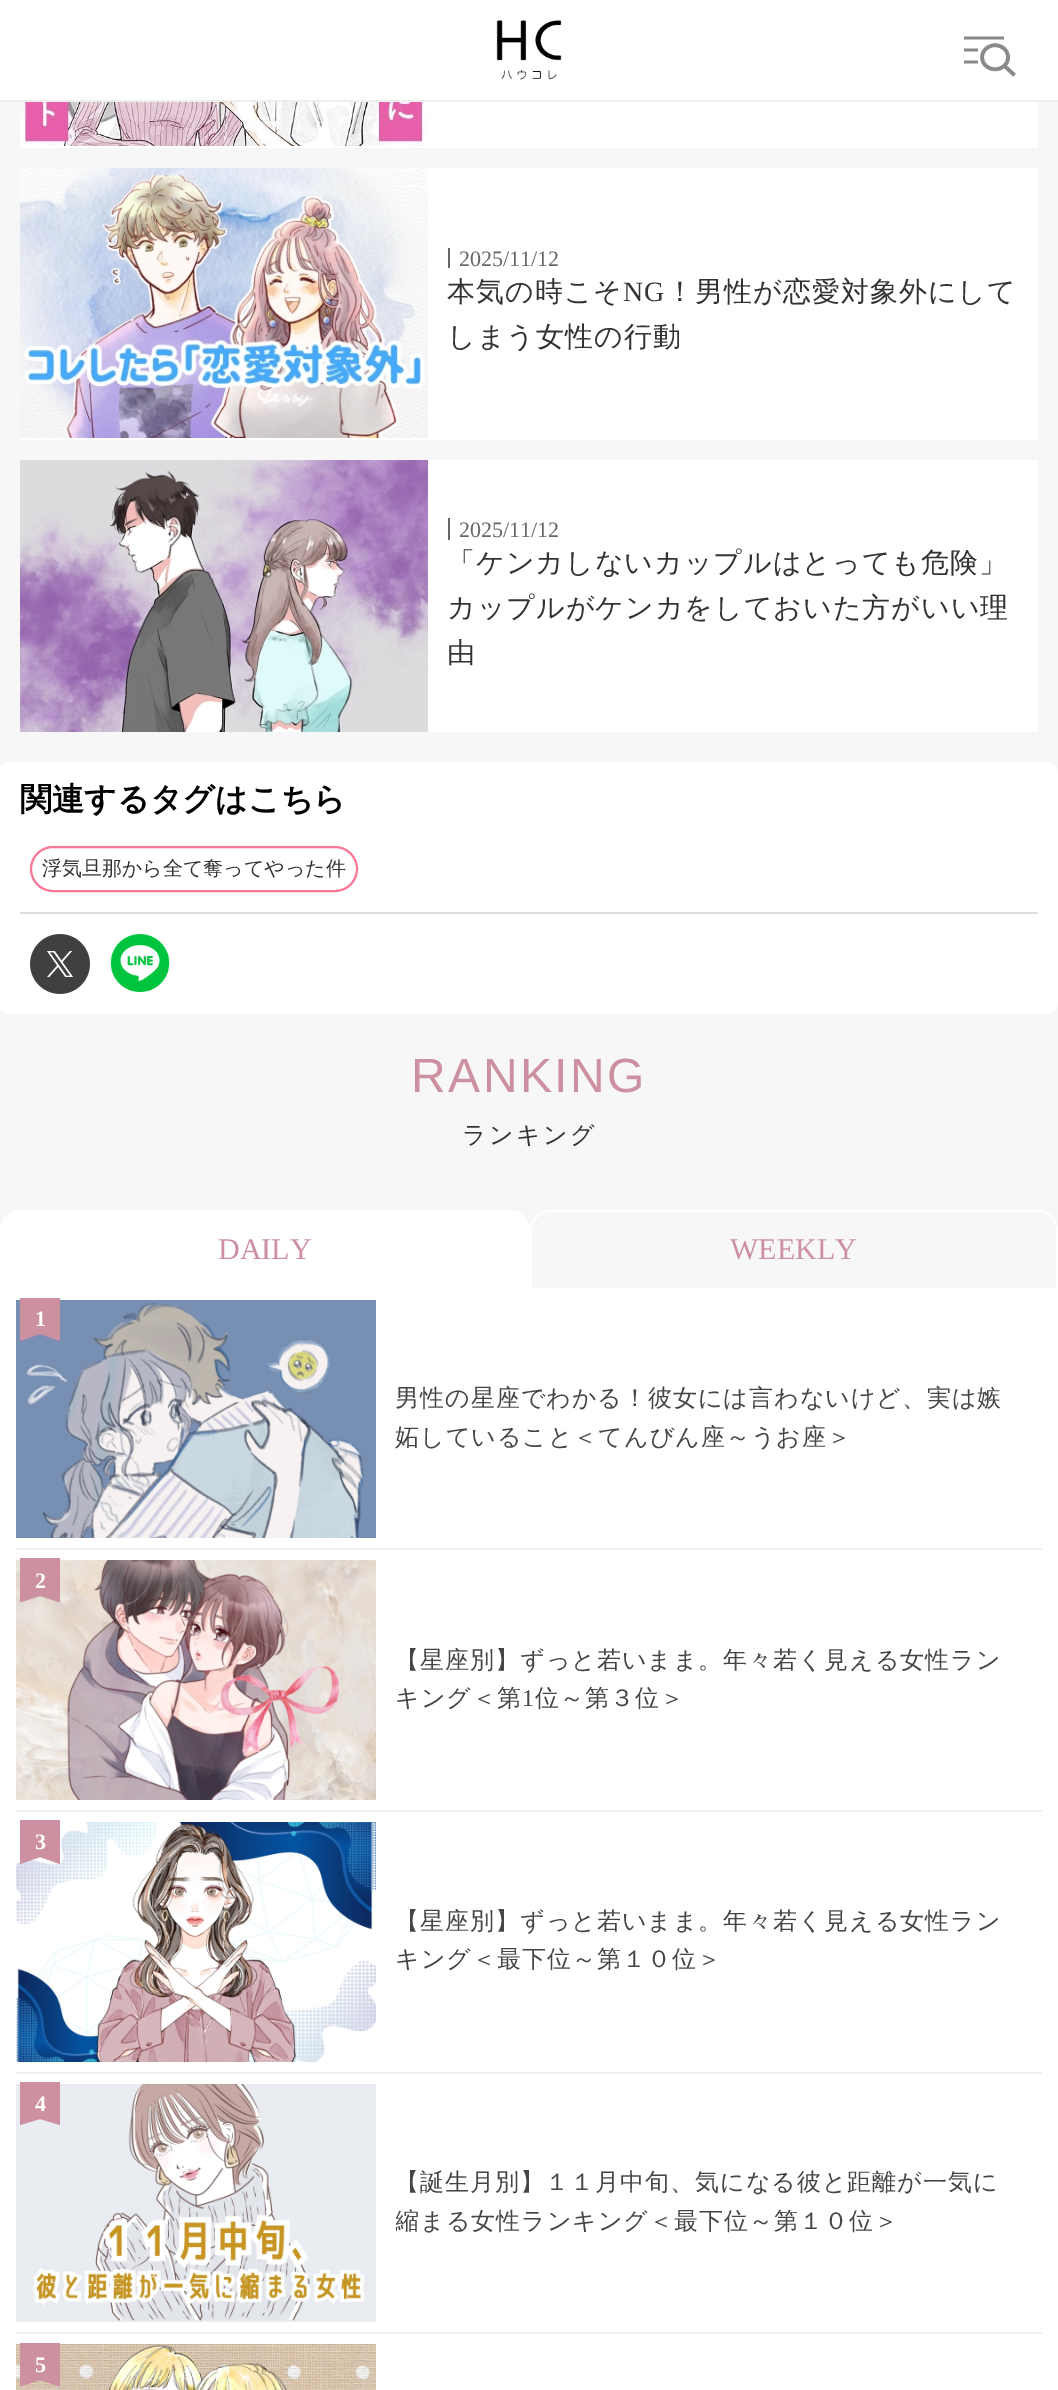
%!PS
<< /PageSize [1058 2390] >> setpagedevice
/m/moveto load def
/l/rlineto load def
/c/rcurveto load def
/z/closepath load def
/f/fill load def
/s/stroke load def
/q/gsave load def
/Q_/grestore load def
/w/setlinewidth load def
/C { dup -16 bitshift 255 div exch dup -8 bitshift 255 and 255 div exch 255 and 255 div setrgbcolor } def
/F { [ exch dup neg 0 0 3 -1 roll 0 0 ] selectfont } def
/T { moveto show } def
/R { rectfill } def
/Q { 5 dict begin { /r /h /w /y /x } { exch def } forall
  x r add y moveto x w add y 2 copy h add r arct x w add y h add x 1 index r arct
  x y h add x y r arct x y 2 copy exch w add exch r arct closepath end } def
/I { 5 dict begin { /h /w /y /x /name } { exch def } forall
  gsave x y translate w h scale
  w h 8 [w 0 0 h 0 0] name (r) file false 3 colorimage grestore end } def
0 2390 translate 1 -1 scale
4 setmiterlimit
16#F8F7F7 C
0 0 1058 2390 R
16#FFFFFF C
0 0 1058 100 R
16#EEEEEE C
0 100 1058 2 R
(1.rgb) 496 20 66 60 I
(2.rgb) 964 36 40 28 I
16#FFFFFF C
978 48 26 16 R
(3.rgb) 980 43 36 34 I
428 102 610 44 R
20 146 1018 2 R
(4.rgb) 20 102 408 44 I
428 168 610 270 R
20 438 1018 2 R
(5.rgb) 20 168 408 270 I
16#666666 C
448 248 2 20 R
/LiberationSerif-Regular 22 F
(2025/11/12) 459 266 T
/WenQuanYiZenHei-Medium 28 F
16#333333 C
447 301 m 1 0 (本気の時こそ) ashow
/LiberationSerif-Regular 28 F
623 301 m 1 0 (NG) ashow
/WenQuanYiZenHei-Medium 28 F
666 301 m 1 0 (！男性が恋愛対象外にして) ashow
447 346 m 1 0 (しまう女性の行動) ashow
16#FFFFFF C
20 460 1018 272 R
(6.rgb) 20 460 408 272 I
16#666666 C
448 518 2 22 R
/LiberationSerif-Regular 22 F
(2025/11/12) 459 537 T
/WenQuanYiZenHei-Medium 28 F
16#333333 C
447 572 m 1 0 (「ケンカしないカップルはとっても危険」) ashow
447 617 m 1 0 (カップルがケンカをしておいた方がいい理) ashow
447 662 m 1 0 (由) ashow
16#FFFFFF C
0 762 1058 252 10 Q f
16#DDDDDD C
20 912 1018 2 R
/WenQuanYiZenHei-Bold 32 F
16#000000 C
(関連するタグはこちら) 20 810 T
16#FB7796 C
2 w
31 847 326 44 22 Q s
/WenQuanYiZenHei-Medium 20 F
16#333333 C
(浮気旦那から全て奪ってやった件) 42 875 T
(7.rgb) 30 934 60 60 I
(8.rgb) 110 934 60 58 I
/LiberationSans-Regular 48 F
16#CC90A0 C
411 1092 m 2.5 0 (RANKING) ashow
/WenQuanYiZenHei-Medium 24 F
16#333333 C
462 1143 m 2.5 0 (ランキング) ashow
16#FFFFFF C
20 1210 m 490 0 l 11 0 20 9 20 20 c 0 60 l -530 0 l 0 -60 l 0 -11 9 -20 20 -20 c z f
/LiberationSerif-Regular 30 F
16#CC90A0 C
(DAILY) 218 1259 T
16#FFFFFF C
550 1211 m 488 0 l 10.5 0 19 8.5 19 19 c 0 59 l -526 0 l 0 -59 l 0 -10.5 8.5 -19 19 -19 c z s
16#CC90A0 C
(WEEKLY) 730 1259 T
16#FFFFFF C
0 1290 1058 1100 R
16#F1F1F1 C
16 1548 1026 2 R
(9.rgb) 16 1300 360 238 I
16#CC90A0 C
20 1298 m 0 43 l 20 -7 l 20 7 l 0 -43 l z f
/LiberationSerif-Bold 22 F
16#FFFFFF C
(1) 35 1326 T
/WenQuanYiZenHei-Medium 24 F
16#454545 C
395 1406 m 1 0 (男性の星座でわかる！彼女には言わないけど、実は嫉) ashow
395 1445 m 1 0 (妬していること＜てんびん座～うお座＞) ashow
16#F1F1F1 C
16 1810 1026 2 R
(10.rgb) 16 1560 360 240 I
16#CC90A0 C
20 1558 m 0 44 l 1 0 l 19 -6 l 19 6 l 1 0 l 0 -44 l z f
/LiberationSerif-Bold 22 F
16#FFFFFF C
(2) 35 1588 T
/WenQuanYiZenHei-Medium 24 F
16#454545 C
395 1668 m 1 0 (【星座別】ずっと若いまま。年々若く見える女性ラン) ashow
395 1706 m 1 0 (キング＜第) ashow
/LiberationSerif-Regular 24 F
522 1706 m 1 0 (1) ashow
/WenQuanYiZenHei-Medium 24 F
535 1706 m 1 0 (位～第３位＞) ashow
16#F1F1F1 C
16 2072 1026 2 R
(11.rgb) 16 1822 360 240 I
16#CC90A0 C
20 1820 m 0 44 l 20 -7 l 20 7 l 0 -44 l z f
/LiberationSerif-Bold 22 F
16#FFFFFF C
(3) 35 1849 T
/WenQuanYiZenHei-Medium 24 F
16#454545 C
395 1929 m 1 0 (【星座別】ずっと若いまま。年々若く見える女性ラン) ashow
395 1967 m 1 0 (キング＜最下位～第１０位＞) ashow
16#F1F1F1 C
16 2332 1026 2 R
(12.rgb) 16 2084 360 238 I
16#CC90A0 C
20 2082 m 0 43 l 20 -6 l 20 6 l 0 -43 l z f
/LiberationSerif-Bold 22 F
16#FFFFFF C
(4) 35 2111 T
/WenQuanYiZenHei-Medium 24 F
16#454545 C
395 2190 m 1 0 (【誕生月別】１１月中旬、気になる彼と距離が一気に) ashow
q
396 2164 626 78 rectclip
395 2229 m 1 0 (縮まる女性ランキング＜最下位～第１０位＞) ashow
Q_
(13.rgb) 16 2344 360 46 I
16#CC90A0 C
20 2343 m 0 43 l 2 0 l 18 -6 l 18 6 l 2 0 l 0 -43 l z f
/LiberationSerif-Bold 22 F
16#FFFFFF C
(5) 35 2372 T
showpage
